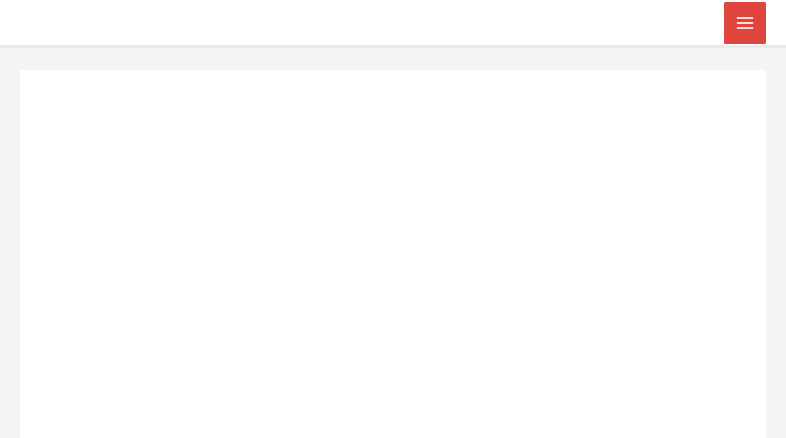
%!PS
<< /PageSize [786 438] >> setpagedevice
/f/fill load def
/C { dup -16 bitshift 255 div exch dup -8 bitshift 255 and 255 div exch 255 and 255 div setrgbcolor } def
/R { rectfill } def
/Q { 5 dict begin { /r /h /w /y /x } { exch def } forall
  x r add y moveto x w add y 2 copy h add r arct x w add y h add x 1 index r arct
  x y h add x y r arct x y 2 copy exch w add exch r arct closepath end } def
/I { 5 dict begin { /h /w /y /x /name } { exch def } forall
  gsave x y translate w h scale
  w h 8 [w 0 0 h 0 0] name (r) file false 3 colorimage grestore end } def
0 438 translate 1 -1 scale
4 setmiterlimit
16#F5F5F5 C
0 0 786 438 R
16#FFFFFF C
0 0 786 45 R
16#EAEAEA C
0 45 786 3 R
16#DF453E C
724 2 42 42 2 Q f
(1.rgb) 736 17 18 12 I
16#FFFFFF C
20 70 746 368 R
showpage
